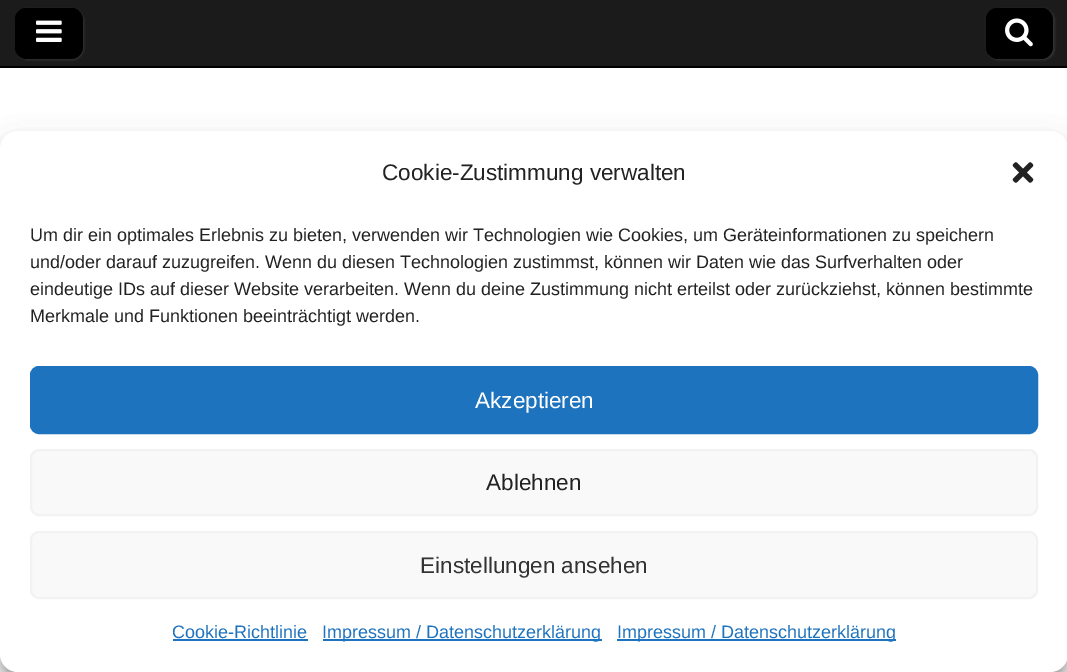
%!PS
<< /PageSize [1067 672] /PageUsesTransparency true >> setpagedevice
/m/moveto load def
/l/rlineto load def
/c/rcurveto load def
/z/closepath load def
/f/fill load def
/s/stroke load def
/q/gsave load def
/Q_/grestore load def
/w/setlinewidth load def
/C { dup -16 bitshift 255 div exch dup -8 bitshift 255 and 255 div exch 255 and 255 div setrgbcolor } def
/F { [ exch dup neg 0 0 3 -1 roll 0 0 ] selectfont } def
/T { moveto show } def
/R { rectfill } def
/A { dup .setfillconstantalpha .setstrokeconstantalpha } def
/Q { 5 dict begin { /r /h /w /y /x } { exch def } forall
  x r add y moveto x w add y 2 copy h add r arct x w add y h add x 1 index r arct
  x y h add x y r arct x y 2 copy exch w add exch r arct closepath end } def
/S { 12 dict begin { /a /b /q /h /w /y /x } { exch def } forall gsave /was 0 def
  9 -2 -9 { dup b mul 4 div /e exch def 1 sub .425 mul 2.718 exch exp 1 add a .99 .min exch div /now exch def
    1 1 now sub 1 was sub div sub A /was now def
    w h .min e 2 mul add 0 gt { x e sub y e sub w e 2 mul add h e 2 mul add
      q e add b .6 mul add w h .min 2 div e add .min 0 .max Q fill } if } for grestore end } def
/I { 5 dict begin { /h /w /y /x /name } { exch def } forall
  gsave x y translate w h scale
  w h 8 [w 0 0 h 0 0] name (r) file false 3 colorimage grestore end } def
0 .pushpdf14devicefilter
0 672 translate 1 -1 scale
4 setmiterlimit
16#FFFFFF C
0 0 1067 672 R
16#1B1B1B C
0 0 1067 66 R
16#000000 C
0 66 1067 2 R
16#333333 C
17 9 67 51 12 1 1 S
16#000000 C
15 8 68 51 12 Q f
28 9 m 44 0 l 3 0 5 1 7 2 c -2 -2 -5 -3 -8 -3 c -44 0 l -7 0 -12 5 -12 12 c 0 27 l 0 4 2 7 4 9 c -5 -5 -3 -15 -3 -22 c 0 -9 -2 -25 12 -25 c z f
(1.rgb) 36 20 26 22 I
16#333333 C
987 9 68 51 12 1 1 S
16#000000 C
986 8 67 51 12 Q f
999 9 m 43 0 l 3 0 5 1 7 2 c -2 -2 -5 -3 -8 -3 c -43 0 l -7 0 -12 5 -12 12 c 0 27 l 0 3 1 6 3 8 c -3 -5 -2 -15 -2 -21 c 0 -9 -3 -25 12 -25 c z f
(2.rgb) 1005 18 28 29 I
0 140 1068 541 18 4.5 .23 S
0 146 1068 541 18 15 .19 S
16#FFFFFF C
0 131 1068 541 18 Q f
/LiberationSans-Regular 22.5 F
16#222222 C
(Cookie-Zustimmung verwalten) 382 180 T
(3.rgb) 1012 162 22 21 I
/LiberationSans-Regular 18 F
(Um dir ein optimales Erlebnis zu bieten, verwenden wir Technologien wie Cookies, um Geräteinformationen zu speichern) 30 241 T
(und/oder darauf zuzugreifen. Wenn du diesen Technologien zustimmst, können wir Daten wie das Surfverhalten oder) 30 268 T
(eindeutige IDs auf dieser Website verarbeiten. Wenn du deine Zustimmung nicht erteilst oder zurückziehst, können bestimmte) 30 295 T
(Merkmale und Funktionen beeinträchtigt werden.) 30 322 T
16#1E73BE C
31 367 1006 66 8 Q q f Q_
2 w
s
/LiberationSans-Regular 22.5 F
16#FFFFFF C
(Akzeptieren) 475 408 T
16#F9F9F9 C
31 450 1006 65 8 Q q f Q_
16#F2F2F2 C
s
16#222222 C
(Ablehnen) 486 490 T
16#F9F9F9 C
31 532 1006 66 8 Q q f Q_
16#F2F2F2 C
s
16#333333 C
(Einstellungen ansehen) 420 573 T
/LiberationSans-Regular 18 F
16#1E73BE C
(Cookie-Richtlinie) 172 638 T
173 639 135 2 R
323 639 279 2 R
(Impressum / Datenschutzerklärung) 322 638 T
617 639 279 2 R
(Impressum / Datenschutzerklärung) 617 638 T
.poppdf14devicefilter showpage
